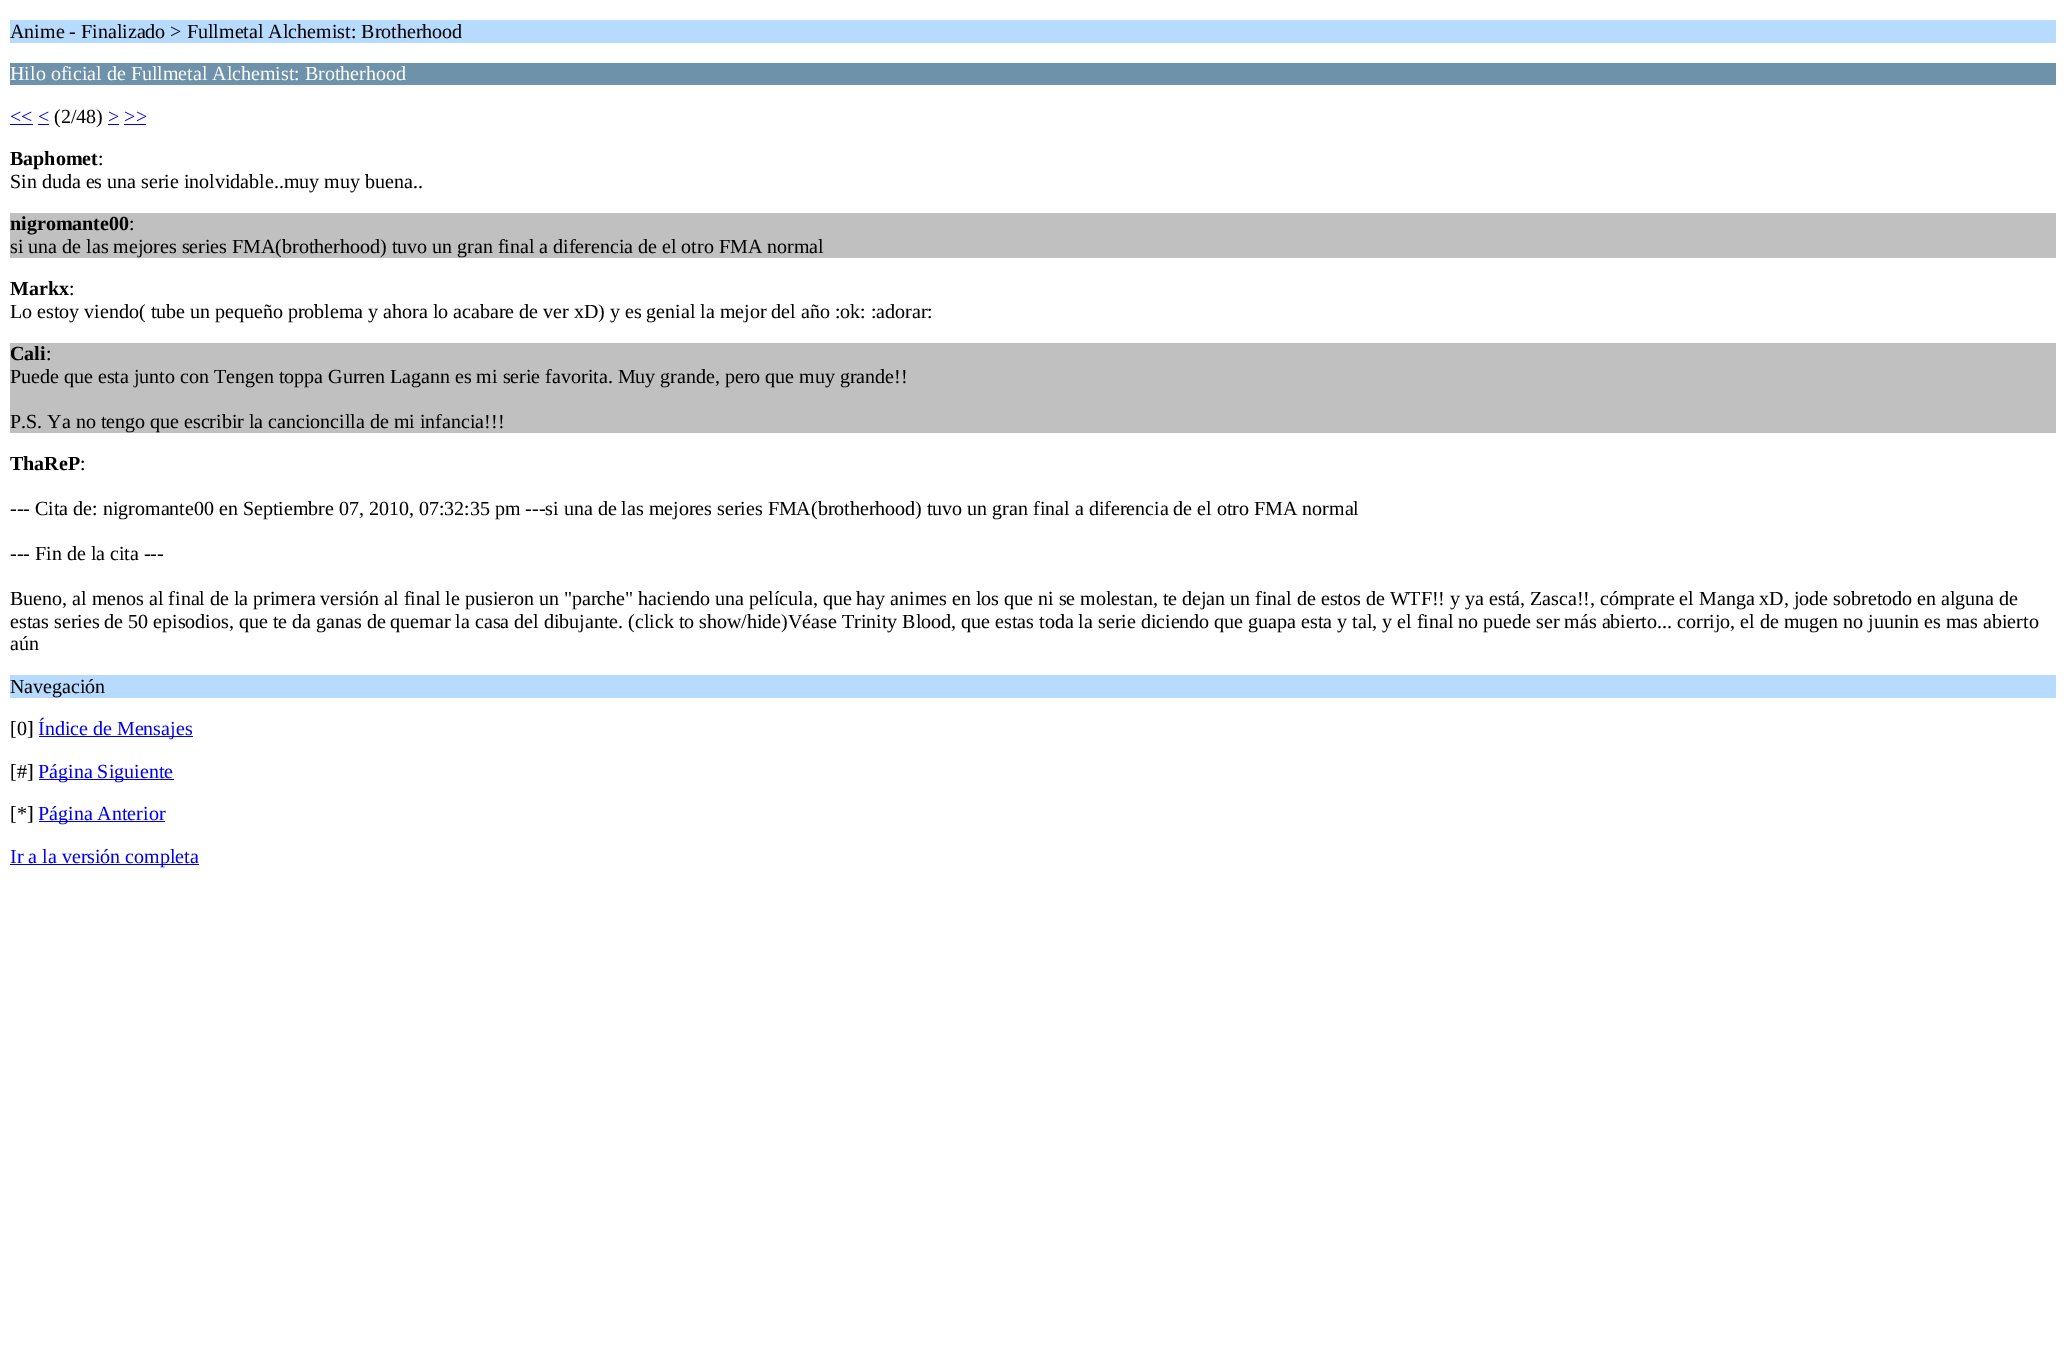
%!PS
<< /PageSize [2066 1361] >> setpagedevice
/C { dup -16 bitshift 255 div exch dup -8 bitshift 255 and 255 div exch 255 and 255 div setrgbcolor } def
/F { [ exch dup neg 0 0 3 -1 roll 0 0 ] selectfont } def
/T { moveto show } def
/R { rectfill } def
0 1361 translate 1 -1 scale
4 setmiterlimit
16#FFFFFF C
0 0 2066 1361 R
16#B6DBFF C
10 20 2046 23 R
/LiberationSerif-Regular 20 F
16#000000 C
(Anime - Finalizado > Fullmetal Alchemist: Brotherhood) 10 38 T
16#6D92AA C
10 63 2046 22 R
16#FFFFFF C
(Hilo oficial de Fullmetal Alchemist: Brotherhood) 10 80 T
16#0000EE C
(<< <) 10 123 T
10 124 23 1 R
16#000000 C
(\(2/48\)) 54 123 T
16#0000EE C
(> >>) 108 123 T
108 124 11 1 R
38 124 11 1 R
124 124 22 1 R
/LiberationSerif-Bold 20 F
16#000000 C
(Baphomet) 10 165 T
/LiberationSerif-Regular 20 F
(:) 98 165 T
(Sin duda es una serie inolvidable..muy muy buena..) 10 188 T
16#C0C0C0 C
10 213 2046 45 R
/LiberationSerif-Bold 20 F
16#000000 C
(nigromante00) 10 230 T
/LiberationSerif-Regular 20 F
(:) 129 230 T
(si una de las mejores series FMA\(brotherhood\) tuvo un gran final a diferencia de el otro FMA normal) 10 253 T
/LiberationSerif-Bold 20 F
(Markx) 10 295 T
/LiberationSerif-Regular 20 F
(:) 69 295 T
(Lo estoy viendo\( tube un pequeño problema y ahora lo acabare de ver xD\) y es genial la mejor del año :ok: :adorar:) 10 318 T
16#C0C0C0 C
10 343 2046 90 R
/LiberationSerif-Bold 20 F
16#000000 C
(Cali) 10 360 T
/LiberationSerif-Regular 20 F
(:) 46 360 T
(Puede que esta junto con Tengen toppa Gurren Lagann es mi serie favorita. Muy grande, pero que muy grande!!) 10 383 T
(P.S. Ya no tengo que escribir la cancioncilla de mi infancia!!!) 10 428 T
/LiberationSerif-Bold 20 F
(ThaReP) 10 470 T
/LiberationSerif-Regular 20 F
(:) 80 470 T
(--- Cita de: nigromante00 en Septiembre 07, 2010, 07:32:35 pm ---si una de las mejores series FMA\(brotherhood\) tuvo un gran final a diferencia de el otro FMA normal) 10 515 T
(--- Fin de la cita ---) 10 560 T
(Bueno, al menos al final de la primera versión al final le pusieron un "parche" haciendo una película, que hay animes en los que ni se molestan, te dejan un final de estos de WTF!! y ya está, Zasca!!, cómprate el Manga xD, jode sobretodo en alguna de) 10 605 T
(estas series de 50 episodios, que te da ganas de quemar la casa del dibujante. \(click to show/hide\)Véase Trinity Blood, que estas toda la serie diciendo que guapa esta y tal, y el final no puede ser más abierto... corrijo, el de mugen no juunin es mas abierto) 10 628 T
(aún) 10 650 T
16#B6DBFF C
10 675 2046 23 R
16#000000 C
(Navegación) 10 693 T
([0]) 10 735 T
16#0000EE C
39 736 154 1 R
(Índice de Mensajes) 38 735 T
16#000000 C
([#]) 10 778 T
16#0000EE C
39 779 135 1 R
(Página Siguiente) 38 778 T
16#000000 C
([*]) 10 820 T
16#0000EE C
39 821 126 1 R
(Página Anterior) 38 820 T
10 864 189 1 R
(Ir a la versión completa) 10 863 T
showpage
